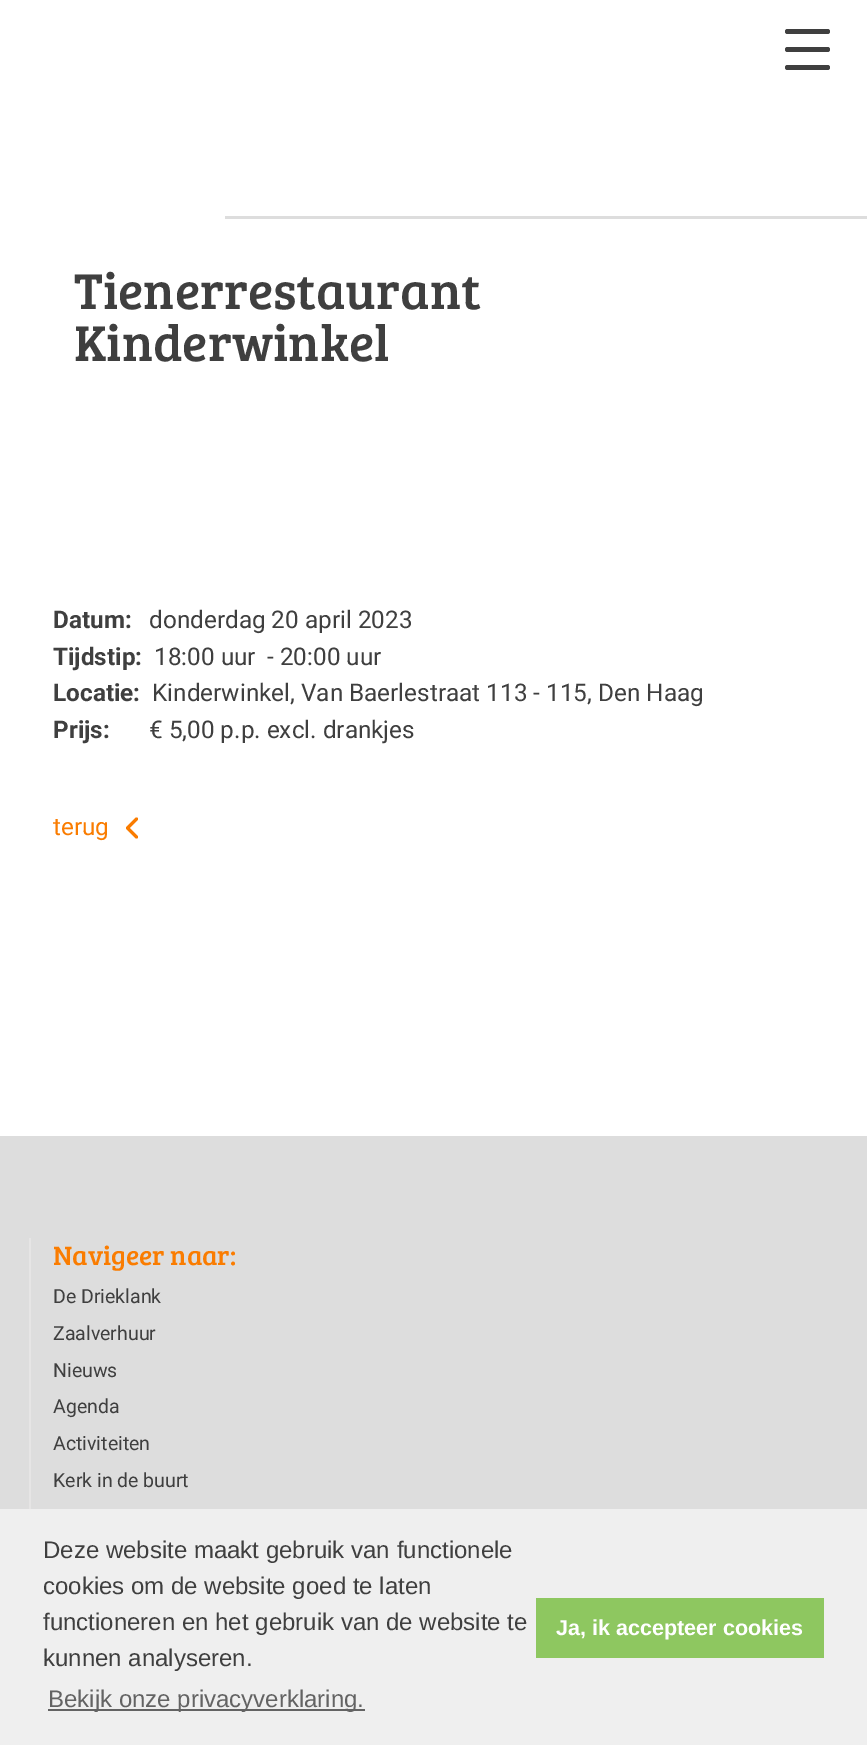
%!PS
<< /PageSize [867 1745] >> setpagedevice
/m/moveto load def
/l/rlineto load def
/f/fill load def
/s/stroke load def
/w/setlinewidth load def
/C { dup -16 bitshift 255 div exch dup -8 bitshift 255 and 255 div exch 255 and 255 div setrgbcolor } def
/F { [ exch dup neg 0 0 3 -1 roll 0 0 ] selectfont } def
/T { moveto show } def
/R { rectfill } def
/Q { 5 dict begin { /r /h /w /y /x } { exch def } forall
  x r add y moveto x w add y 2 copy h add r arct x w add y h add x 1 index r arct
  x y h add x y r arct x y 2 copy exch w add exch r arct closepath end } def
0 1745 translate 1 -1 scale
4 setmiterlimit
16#FFFFFF C
0 0 867 1745 R
16#3F3F3F C
785 29 45 5 2.5 Q f
785 47 45 5 2.5 Q f
785 65 45 5 2.5 Q f
16#DDDDDD C
225 216 642 3 R
/BreeSerif-Regular 52 F
16#3F3F3F C
(Tienerrestaurant) 74 309 T
(Kinderwinkel) 74 361 T
/Roboto-Bold 24.3 F
(Datum:) 53 628 T
/Roboto-Regular 24.3 F
(donderdag 20 april 2023) 149 628 T
/Roboto-Bold 24.3 F
(Tijdstip:) 53 665 T
/Roboto-Regular 24.3 F
(18:00 uur) 154 665 T
(- 20:00 uur) 267 665 T
/Roboto-Bold 24.3 F
(Locatie:) 53 701 T
/Roboto-Regular 24.3 F
(Kinderwinkel, Van Baerlestraat 113 - 115, Den Haag) 152 701 T
/Roboto-Bold 24.3 F
(Prijs:) 53 738 T
/Roboto-Regular 24.3 F
(€ 5,00 p.p. excl. drankjes) 149 738 T
16#FA7C00 C
(terug) 53 835 T
3 w
1 setlinecap
1 setlinejoin
136.5 837 m -9 -9 l 9 -9 l s
16#DDDDDD C
0 1136 867 373 R
16#E6E5E5 C
29 1238 2 271 R
/BreeSerif-Regular 27.25 F
16#FA7C00 C
(Navigeer naar:) 53 1265 T
/Roboto-Regular 19.5 F
16#3F3F3F C
(De Drieklank) 53 1303 T
(Zaalverhuur) 53 1340 T
(Nieuws) 53 1377 T
(Agenda) 53 1413 T
(Activiteiten) 53 1450 T
(Kerk in de buurt) 53 1487 T
16#EFEFEF C
0 1509 867 236 R
/LiberationSans-Regular 24 F
16#3F3F3F C
(Deze website maakt gebruik van functionele) 43 1558 T
(cookies om de website goed te laten) 43 1594 T
(functioneren en het gebruik van de website te) 43 1630 T
(kunnen analyseren.) 43 1666 T
16#636363 C
48 1709 317 2 R
(Bekijk onze privacyverklaring.) 48 1707 T
16#8EC760 C
536 1598 288 60 R
/LiberationSans-Bold 21.6 F
16#FFFFFF C
(Ja, ik accepteer cookies) 556 1635 T
showpage
